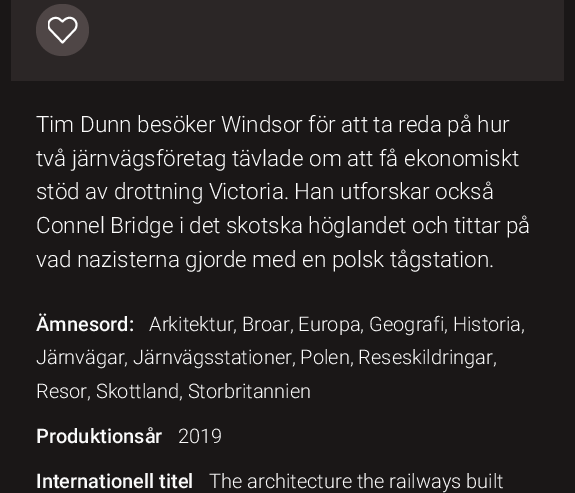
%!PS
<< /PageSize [575 493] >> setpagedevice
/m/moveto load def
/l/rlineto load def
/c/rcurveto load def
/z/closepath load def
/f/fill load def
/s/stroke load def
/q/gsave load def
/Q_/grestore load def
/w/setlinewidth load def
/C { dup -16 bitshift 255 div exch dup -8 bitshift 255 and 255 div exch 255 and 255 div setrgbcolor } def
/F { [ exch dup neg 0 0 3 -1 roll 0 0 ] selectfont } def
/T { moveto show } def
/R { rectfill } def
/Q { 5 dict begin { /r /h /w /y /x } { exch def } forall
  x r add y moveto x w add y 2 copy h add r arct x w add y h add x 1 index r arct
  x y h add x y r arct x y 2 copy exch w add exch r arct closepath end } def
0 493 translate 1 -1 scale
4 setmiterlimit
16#1A1717 C
0 0 575 493 R
16#2B2626 C
11 0 553 81 R
16#4F4646 C
36 4 53 52 26 Q f
q
48 15 30 30 rectclip
16#FFFFFF C
1.9 w
1 setlinecap
1 setlinejoin
62.5 42.5 m -12 -12.5 l -3 -3 -3 -7.5 0 -10 c 3 -3 7.5 -3 10 0 c 2 1.5 l 1 -1 2.5 -2.5 4 -3 c 7 -3.5 13.5 5.5 8 11.5 c z s
Q_
/Roboto-Light 22.5 F
16#FAFAFA C
(Tim Dunn besöker Windsor för att ta reda på hur) 36 132 T
(två järnvägsföretag tävlade om att få ekonomiskt) 36 166 T
(stöd av drottning Victoria. Han utforskar också) 36 199 T
(Connel Bridge i det skotska höglandet och tittar på) 36 233 T
(vad nazisterna gjorde med en polsk tågstation.) 36 267 T
/Roboto-Medium 20 F
(Ämnesord:) 36 331 T
/Roboto-Light 20 F
(Arkitektur, Broar, Europa, Geografi, Historia,) 149 331 T
(Järnvägar, Järnvägsstationer, Polen, Reseskildringar,) 36 364 T
(Resor, Skottland, Storbritannien) 36 398 T
/Roboto-Medium 20 F
(Produktionsår) 36 443 T
/Roboto-Light 20 F
(2019) 178 443 T
/Roboto-Medium 20 F
(Internationell titel) 36 488 T
/Roboto-Light 20 F
(The architecture the railways built) 209 488 T
showpage
